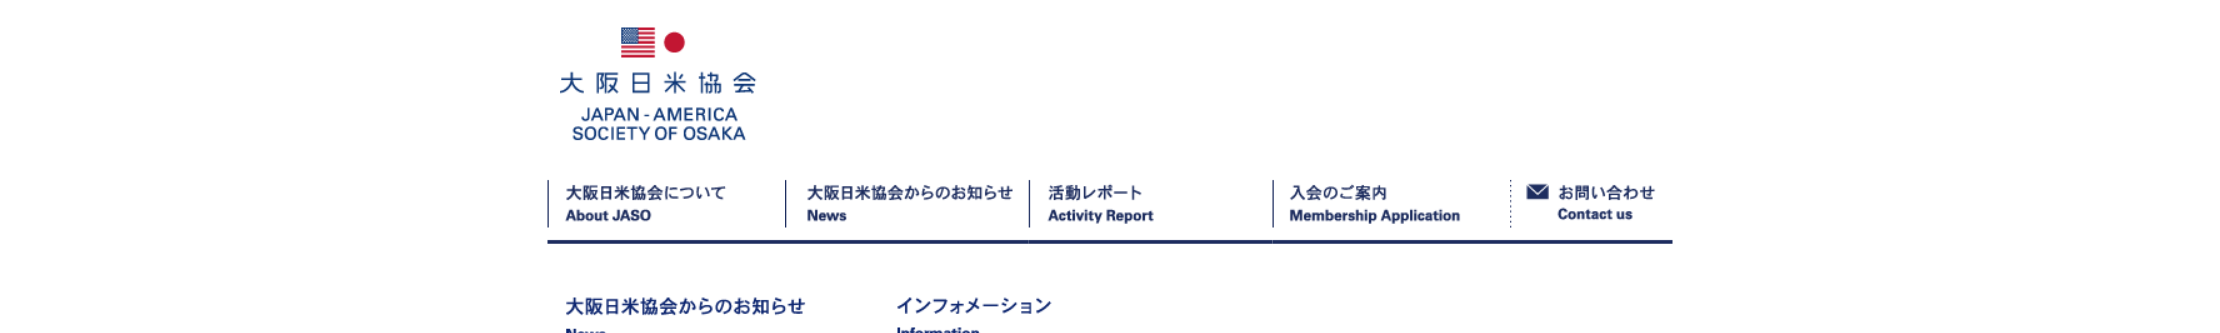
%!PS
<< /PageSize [2220 333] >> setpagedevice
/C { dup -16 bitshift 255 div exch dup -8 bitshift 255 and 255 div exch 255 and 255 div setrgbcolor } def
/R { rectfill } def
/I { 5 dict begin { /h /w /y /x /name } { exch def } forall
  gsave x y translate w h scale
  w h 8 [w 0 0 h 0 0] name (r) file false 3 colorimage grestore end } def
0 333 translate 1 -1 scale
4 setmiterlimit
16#FFFFFF C
0 0 2220 333 R
(1.rgb) 560 27 197 114 I
(2.rgb) 547 179 238 65 I
(3.rgb) 785 179 244 65 I
(4.rgb) 1028 179 245 65 I
(5.rgb) 1272 179 238 65 I
(6.rgb) 1510 179 163 65 I
(7.rgb) 566 297 240 36 I
(8.rgb) 897 297 155 36 I
showpage
